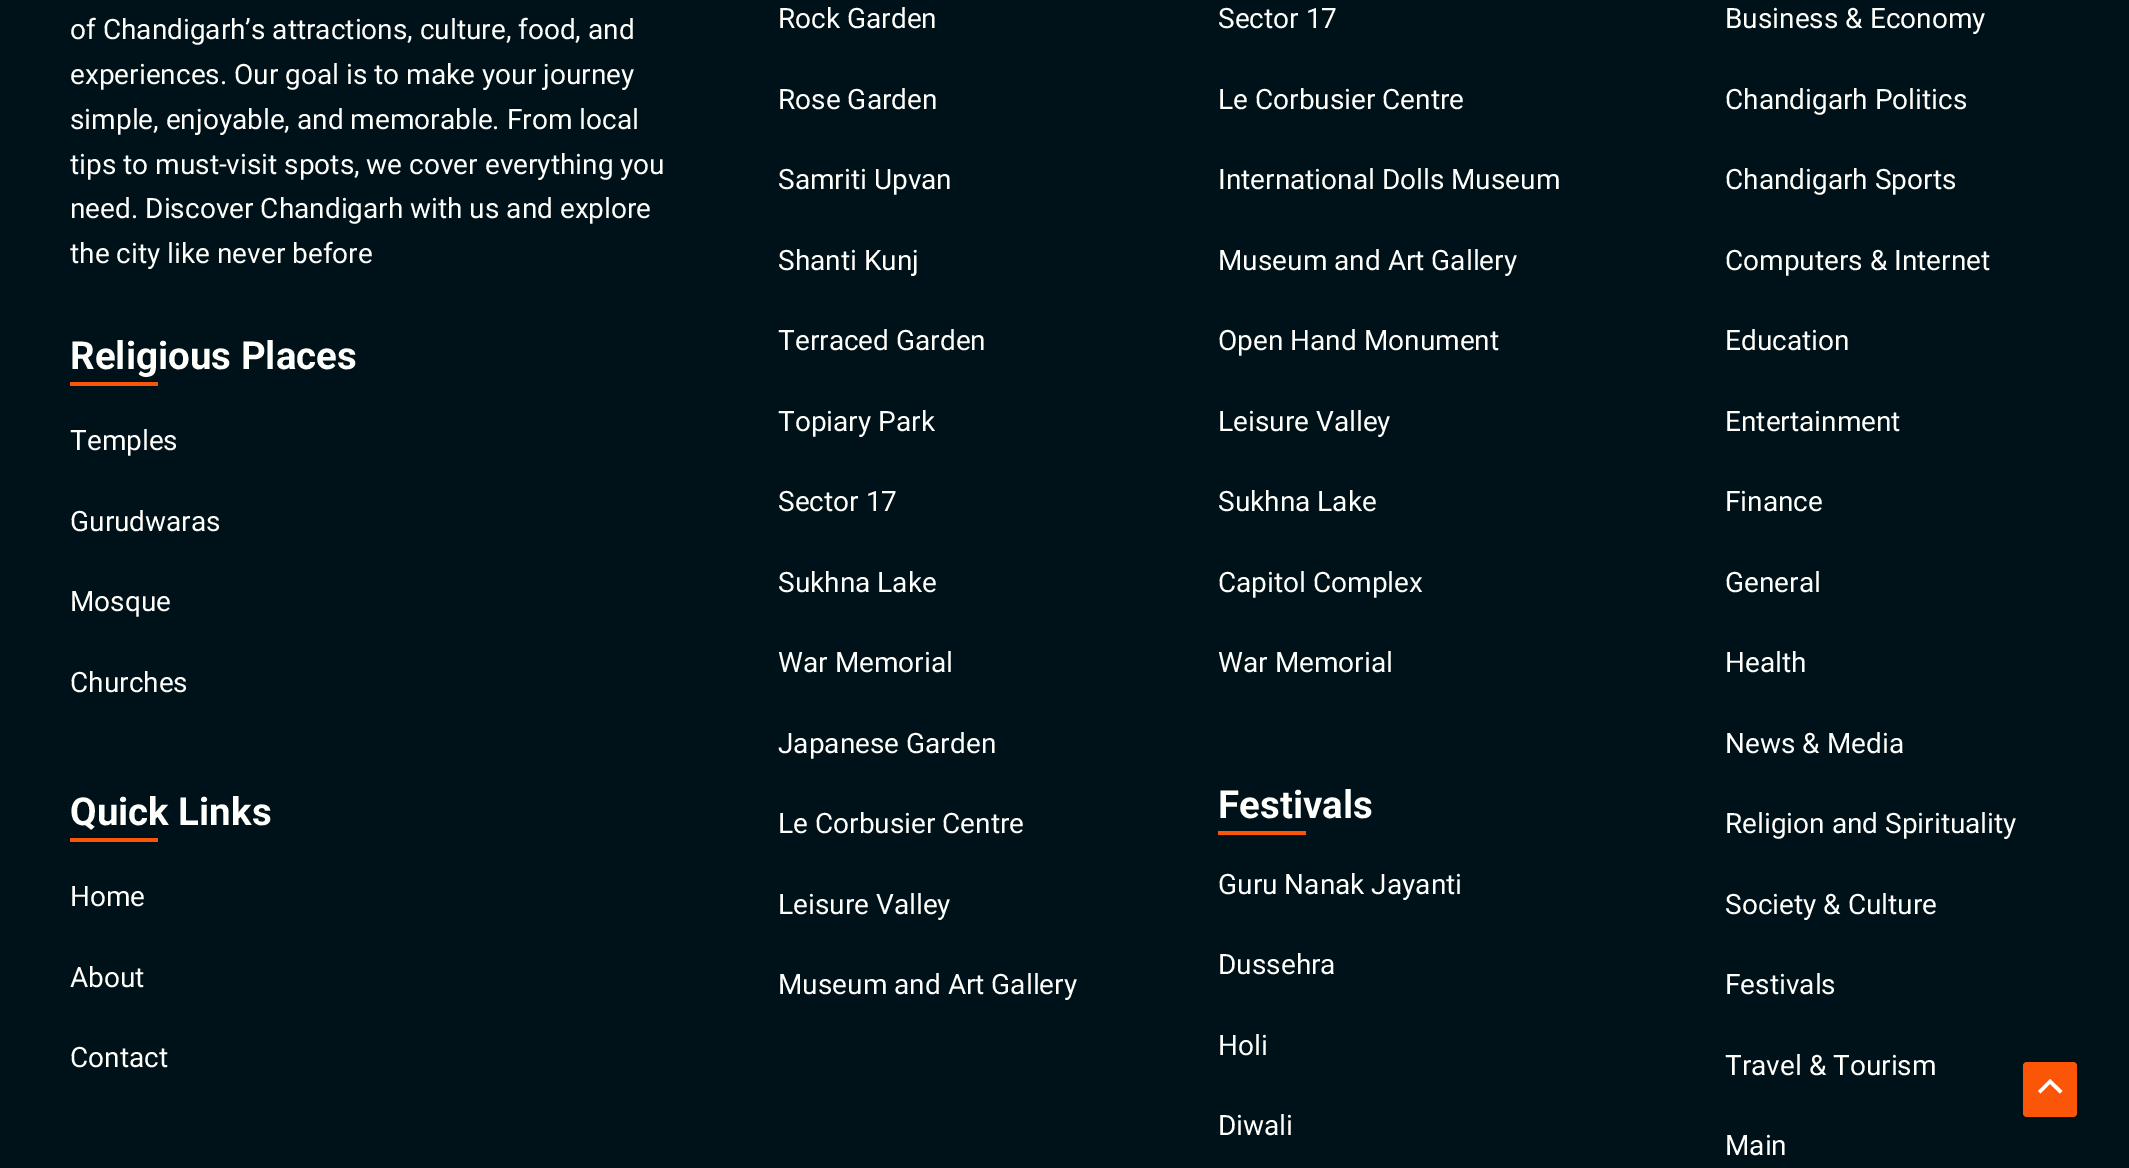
%!PS
<< /PageSize [2129 1168] >> setpagedevice
/m/moveto load def
/l/rlineto load def
/z/closepath load def
/f/fill load def
/C { dup -16 bitshift 255 div exch dup -8 bitshift 255 and 255 div exch 255 and 255 div setrgbcolor } def
/F { [ exch dup neg 0 0 3 -1 roll 0 0 ] selectfont } def
/T { moveto show } def
/R { rectfill } def
/Q { 5 dict begin { /r /h /w /y /x } { exch def } forall
  x r add y moveto x w add y 2 copy h add r arct x w add y h add x 1 index r arct
  x y h add x y r arct x y 2 copy exch w add exch r arct closepath end } def
0 1168 translate 1 -1 scale
4 setmiterlimit
16#001219 C
0 0 2129 1168 R
/Roboto-Regular 28 F
16#FFFFFC C
(of Chandigarh’s attractions, culture, food, and) 70 39 T
(experiences. Our goal is to make your journey) 70 84 T
(simple, enjoyable, and memorable. From local) 70 129 T
(tips to must-visit spots, we cover everything you) 70 174 T
(need. Discover Chandigarh with us and explore) 70 218 T
(the city like never before) 70 263 T
/Roboto-Bold 38.5 F
(Religious Places) 70 369 T
16#FB5607 C
70 382 88 4 R
/Roboto-Regular 28 F
16#FFFFFC C
(Temples) 70 450 T
(Gurudwaras) 70 531 T
(Mosque) 70 611 T
(Churches) 70 692 T
/Roboto-Bold 38.5 F
(Quick Links) 70 825 T
16#FB5607 C
70 838 88 4 R
/Roboto-Regular 28 F
16#FFFFFC C
(Home) 70 906 T
(About) 70 987 T
(Contact) 70 1067 T
(Rock Garden) 778 28 T
(Rose Garden) 778 109 T
(Samriti Upvan) 778 189 T
(Shanti Kunj) 778 270 T
(Terraced Garden) 778 350 T
(Topiary Park) 778 431 T
(Sector 17) 778 511 T
(Sukhna Lake) 778 592 T
(War Memorial) 778 672 T
(Japanese Garden) 778 753 T
(Le Corbusier Centre) 778 833 T
(Leisure Valley) 778 914 T
(Museum and Art Gallery) 778 994 T
(Sector 17) 1218 28 T
(Le Corbusier Centre) 1218 109 T
(International Dolls Museum) 1218 189 T
(Museum and Art Gallery) 1218 270 T
(Open Hand Monument) 1218 350 T
(Leisure Valley) 1218 431 T
(Sukhna Lake) 1218 511 T
(Capitol Complex) 1218 592 T
(War Memorial) 1218 672 T
/Roboto-Bold 38.5 F
(Festivals) 1218 818 T
16#FB5607 C
1218 831 88 4 R
/Roboto-Regular 28 F
16#FFFFFC C
(Guru Nanak Jayanti) 1218 894 T
(Dussehra) 1218 974 T
(Holi) 1218 1055 T
(Diwali) 1218 1135 T
(Business & Economy) 1725 28 T
(Chandigarh Politics) 1725 109 T
(Chandigarh Sports) 1725 189 T
(Computers & Internet) 1725 270 T
(Education) 1725 350 T
(Entertainment) 1725 431 T
(Finance) 1725 511 T
(General) 1725 592 T
(Health) 1725 672 T
(News & Media) 1725 753 T
(Religion and Spirituality) 1725 833 T
(Society & Culture) 1725 914 T
(Festivals) 1725 994 T
(Travel & Tourism) 1725 1075 T
(Main) 1725 1155 T
16#FB5607 C
2023 1062 54 55 4 Q f
16#FFFFFF C
2062.5 1091 m -12.5 -12 l -12 12 l 2.5 2.5 l 9.5 -9.5 l 10 9.5 l z f
showpage
